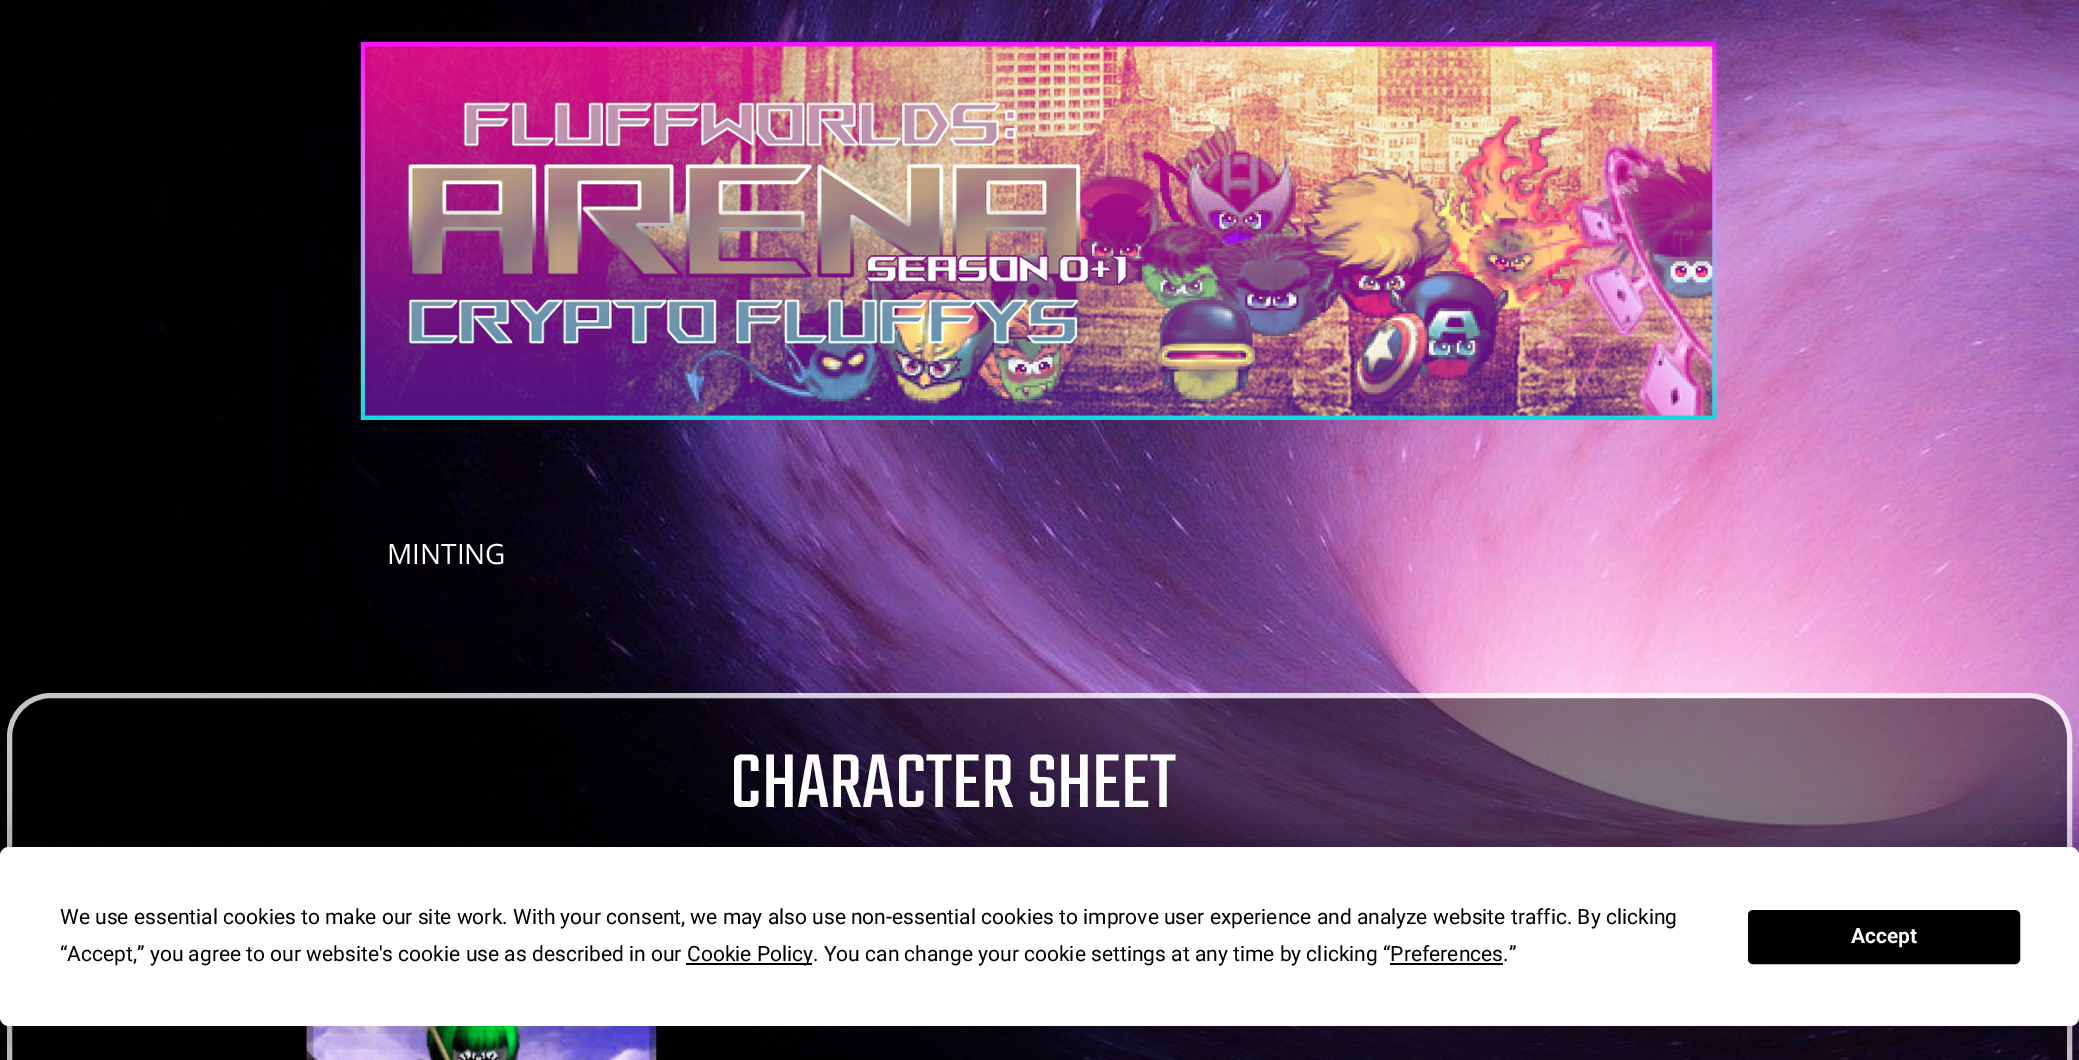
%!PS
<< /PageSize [2079 1060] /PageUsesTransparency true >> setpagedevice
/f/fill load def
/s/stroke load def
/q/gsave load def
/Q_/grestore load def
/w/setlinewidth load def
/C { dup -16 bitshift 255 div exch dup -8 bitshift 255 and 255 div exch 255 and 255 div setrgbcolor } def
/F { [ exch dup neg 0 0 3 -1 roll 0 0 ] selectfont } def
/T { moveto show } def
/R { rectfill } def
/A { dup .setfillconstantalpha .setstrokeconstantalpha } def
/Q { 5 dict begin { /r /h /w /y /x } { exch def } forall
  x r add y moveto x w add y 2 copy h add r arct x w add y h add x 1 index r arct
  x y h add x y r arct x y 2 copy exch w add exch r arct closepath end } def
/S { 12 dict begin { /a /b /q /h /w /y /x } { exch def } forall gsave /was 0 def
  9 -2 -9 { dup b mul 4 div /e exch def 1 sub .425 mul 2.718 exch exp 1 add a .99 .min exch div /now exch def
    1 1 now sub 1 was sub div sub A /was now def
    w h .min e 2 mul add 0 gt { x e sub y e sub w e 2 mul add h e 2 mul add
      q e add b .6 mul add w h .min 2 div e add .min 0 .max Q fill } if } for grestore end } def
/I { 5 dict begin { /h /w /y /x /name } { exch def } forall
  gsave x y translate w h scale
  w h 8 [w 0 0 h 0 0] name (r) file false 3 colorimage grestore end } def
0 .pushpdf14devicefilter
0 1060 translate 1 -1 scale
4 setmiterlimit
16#FFFFFF C
0 0 2079 1060 R
(1.rgb) 0 0 2079 1060 I
(2.rgb) 360 42 1357 378 I
/OpenSans-Regular 28 F
(MINTING) 387 564 T
0.49 A
16#000000 C
12 698 2055 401 39 Q f
0.77 A
16#FFFFFF C
5 w
9.5 695.5 2060 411 41.5 Q s
/Teko-Regular 84 F
1 A
(CHARACTER SHEET) 730 807 T
(3.rgb) 306 1026 351 34 I
16#000000 C
0 847 2079 179 9 30.5 .25 S
16#FFFFFF C
0 847 2079 179 9 Q f
/Roboto-Regular 21 F
16#000000 C
(We use essential cookies to make our site work. With your consent, we may also use non-essential cookies to improve user experience and analyze website traffic. By clicking) 60 924 T
(“Accept,” you agree to our website's cookie use as described in our) 60 961 T
686 963 126 2 R
(Cookie Policy. You can change your cookie settings at any time by clicking “Preferences.”) 687 961 T
1390 963 113 2 R
1749 911 270 52 4 Q q f Q_
2 w
s
/Roboto-Bold 21 F
16#FFFFFF C
(Accept) 1851 943 T
.poppdf14devicefilter showpage
